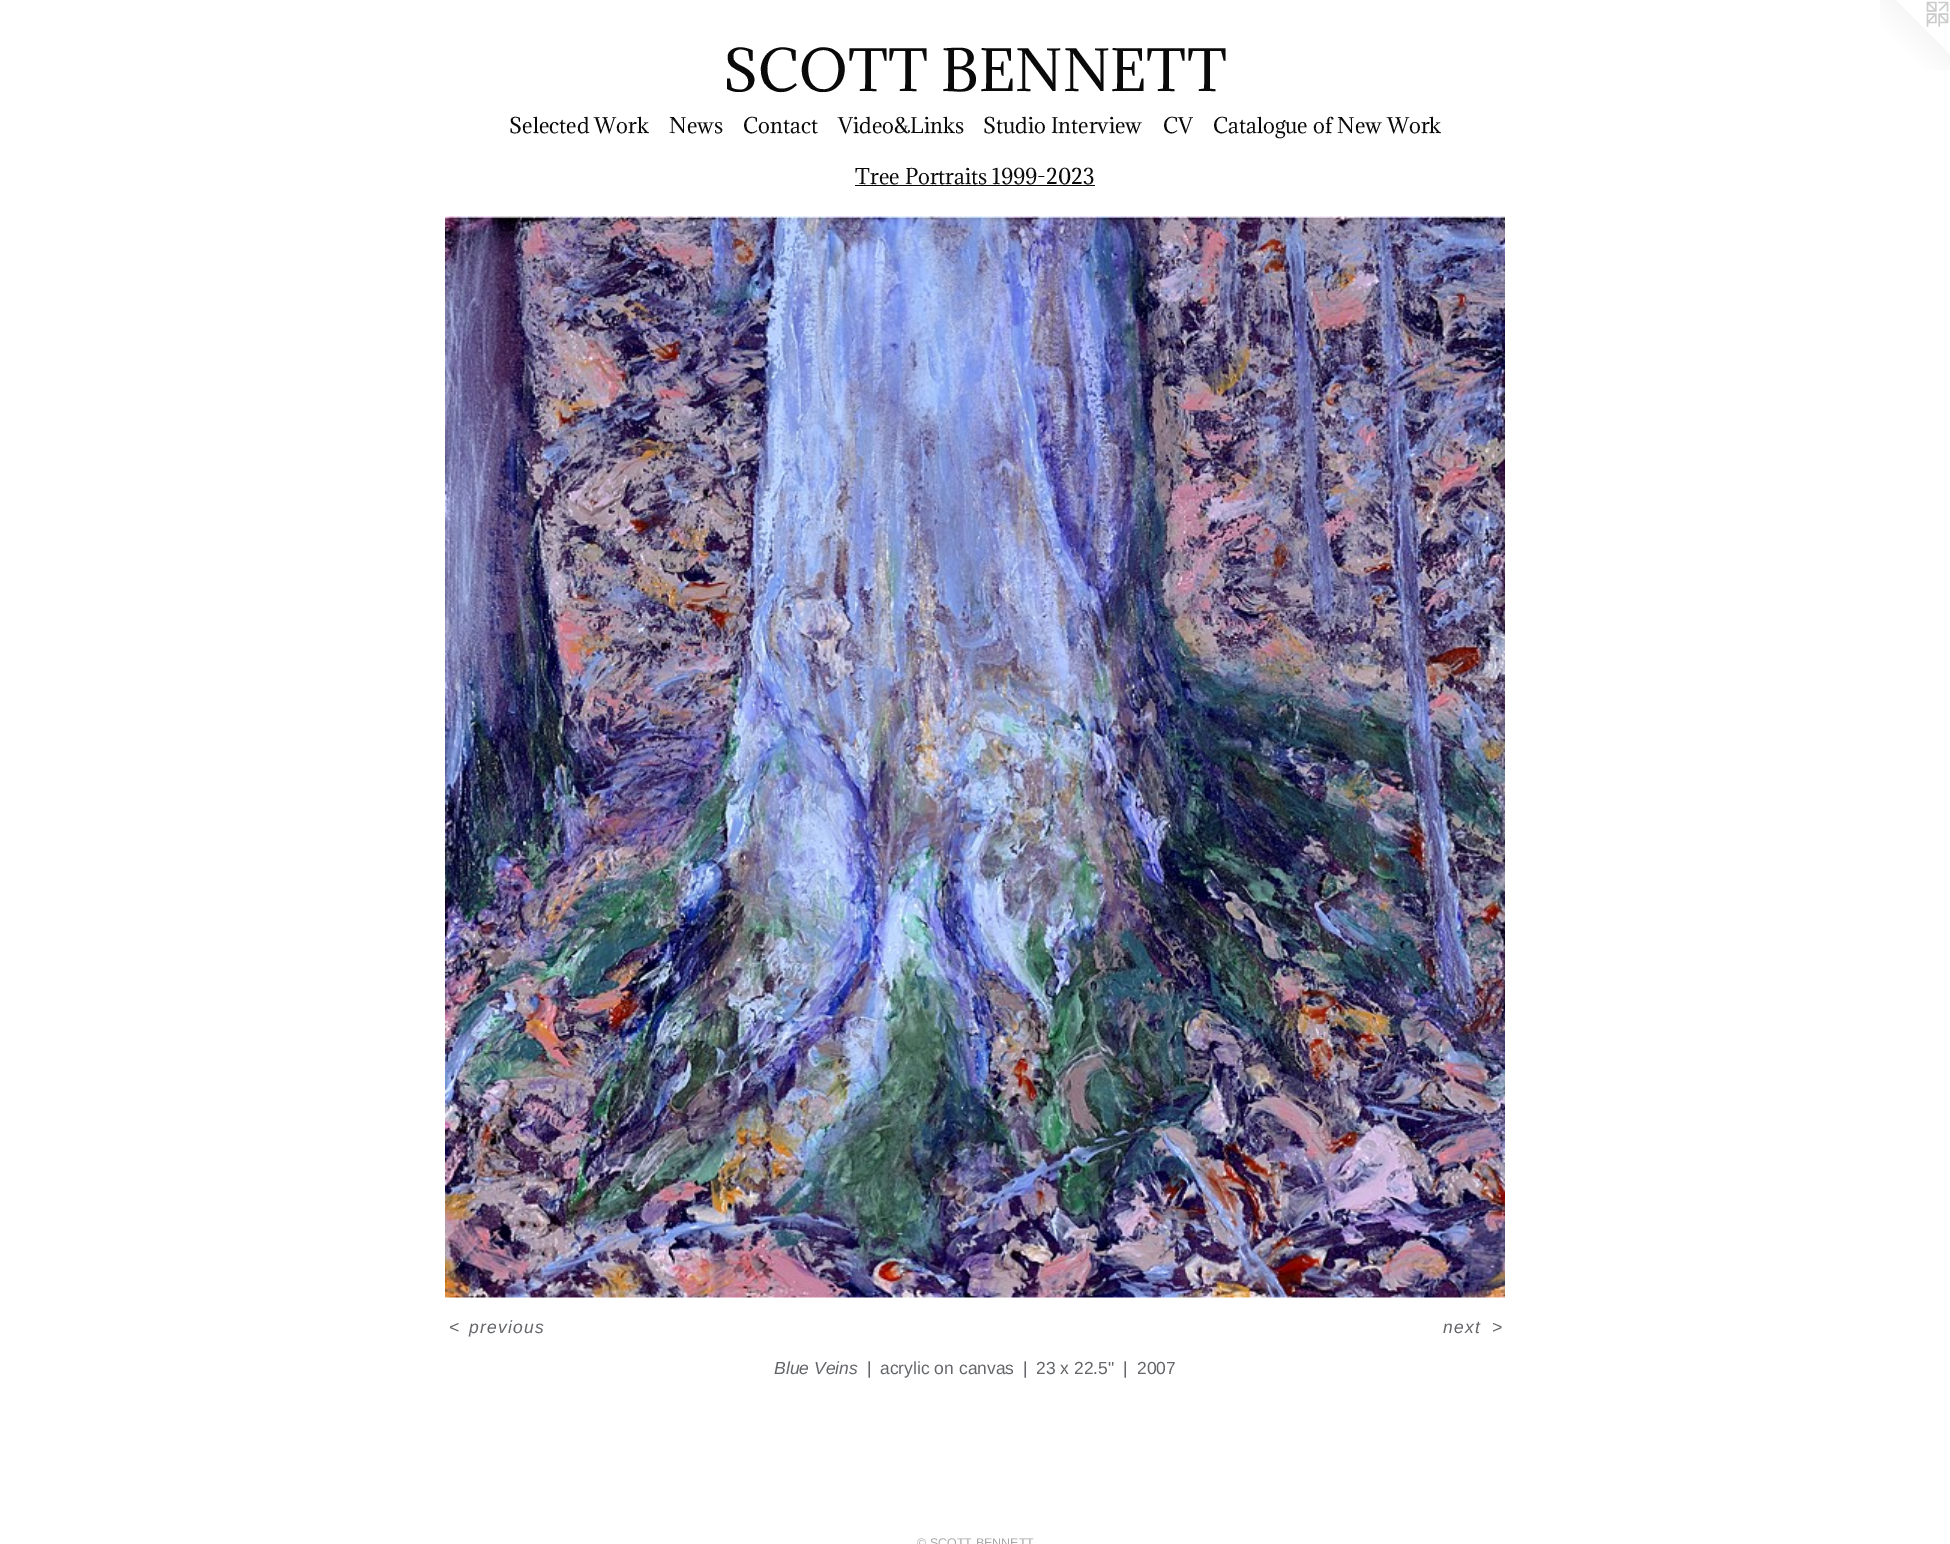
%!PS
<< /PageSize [1950 1544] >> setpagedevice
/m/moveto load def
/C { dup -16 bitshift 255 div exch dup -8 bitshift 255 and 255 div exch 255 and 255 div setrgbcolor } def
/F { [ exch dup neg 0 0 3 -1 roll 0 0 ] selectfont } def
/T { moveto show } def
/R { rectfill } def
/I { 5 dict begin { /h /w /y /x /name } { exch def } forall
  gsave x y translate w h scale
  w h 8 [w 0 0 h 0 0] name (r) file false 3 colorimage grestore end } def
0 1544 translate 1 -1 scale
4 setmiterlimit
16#FFFFFF C
0 0 1950 1544 R
/Adamina-Regular 53.75 F
16#0A0A0A C
(SCOTT BENNETT) 723 91 T
(1.rgb) 1880 0 70 70 I
/Adamina-Regular 20 F
(Selected Work) 509 133 T
(News) 669 133 T
(Contact) 743 133 T
(Video&Links) 838 133 T
(Studio Interview) 983 133 T
(CV) 1163 133 T
(Catalogue of New Work) 1213 133 T
(Tree Portraits 1999-2023) 855 184 T
16#0B0909 C
855 185 240 1 R
(2.rgb) 445 216 1060 1082 I
/LiberationSans-Italic 17.5 F
16#636569 C
449 1333 m 1.25 0 (<) ashow
469 1333 m 1.25 0 (previous) ashow
1443 1333 m 1.25 0 (next) ashow
1492 1333 m 1.25 0 (>) ashow
(Blue Veins) 774 1374 T
/LiberationSans-Regular 17.5 F
(|) 867 1374 T
(acrylic on canvas) 880 1374 T
(|) 1023 1374 T
(23 x 22.5") 1036 1374 T
(|) 1123 1374 T
(2007) 1137 1374 T
/LiberationSans-Regular 12.5 F
16#A7A8A9 C
(© SCOTT BENNETT) 917 1547 T
showpage
